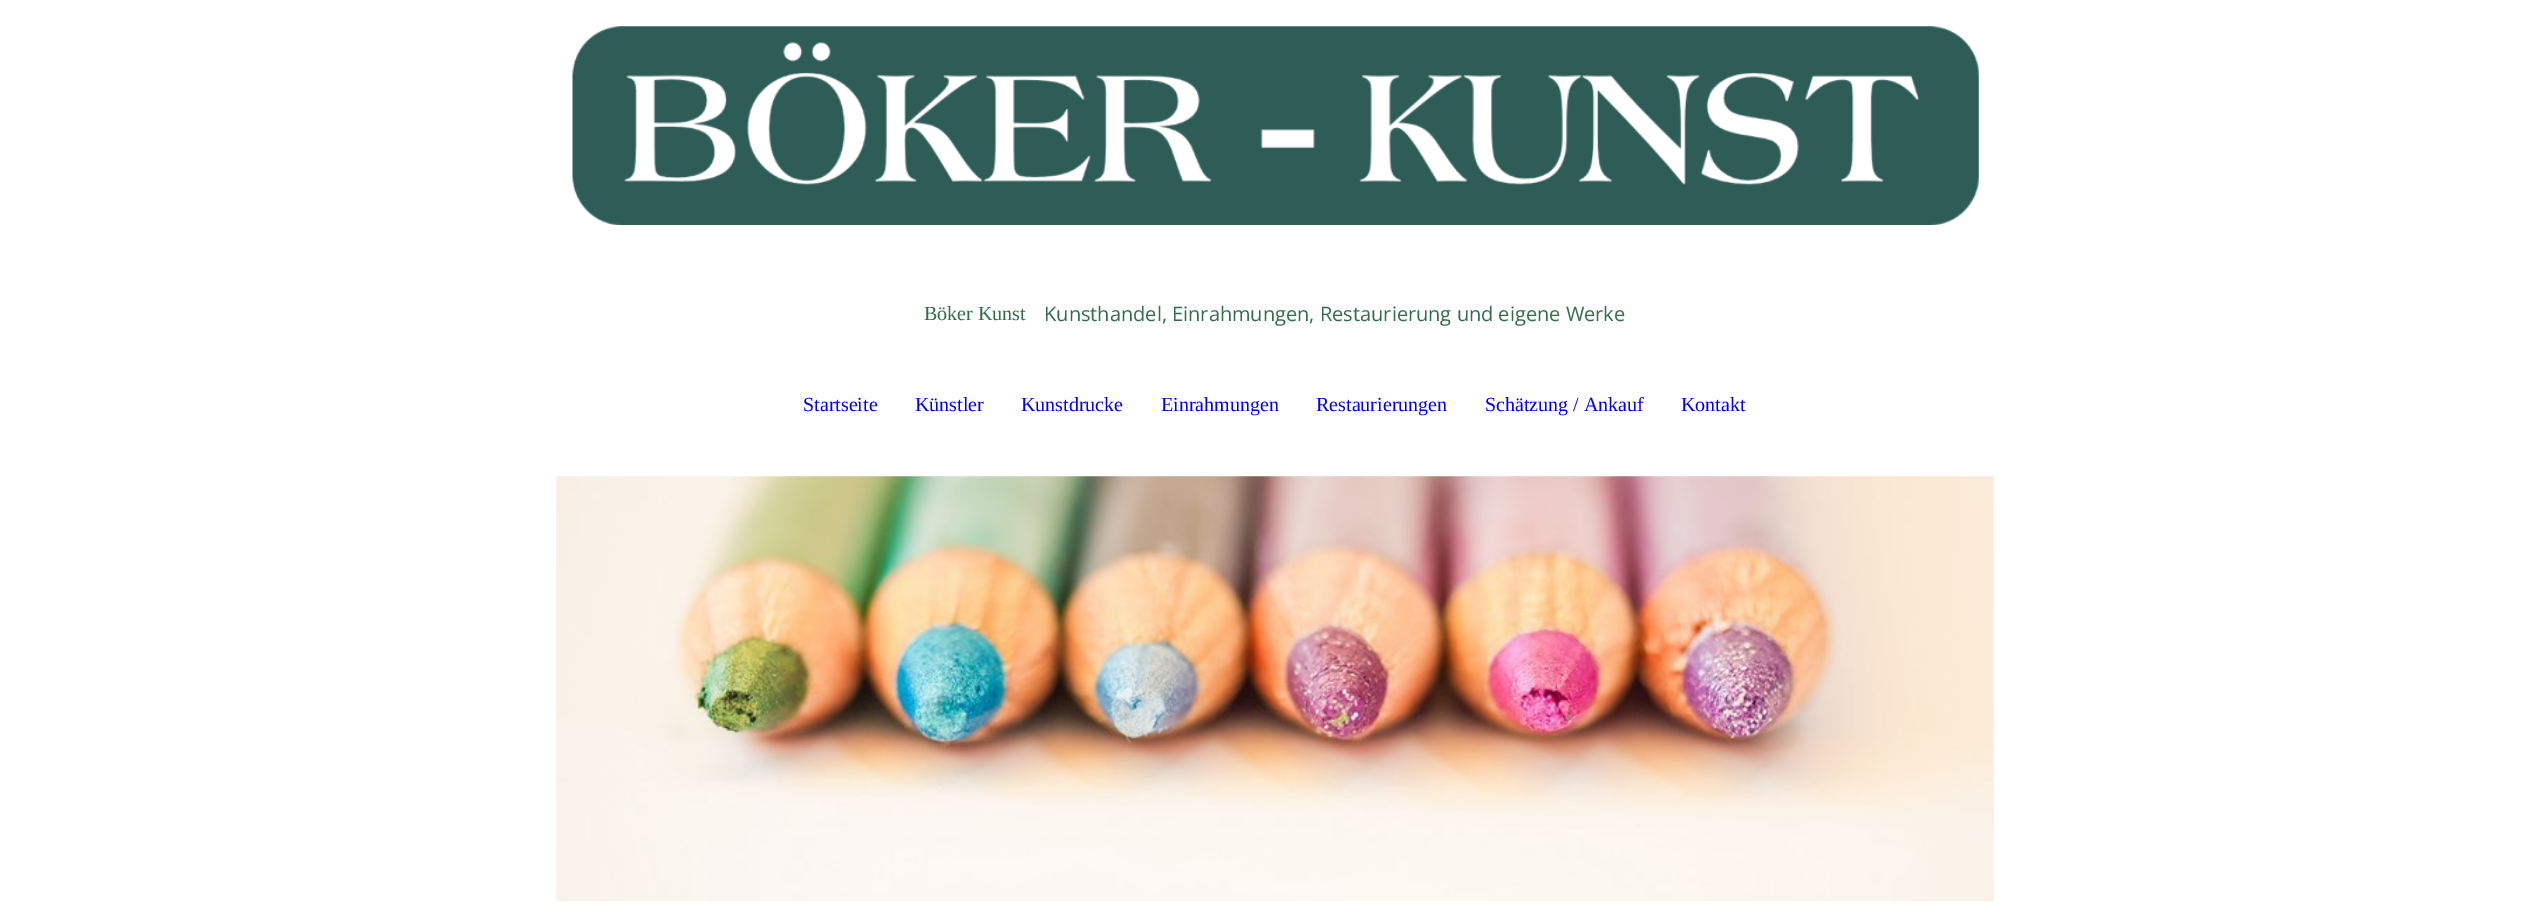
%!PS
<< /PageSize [2548 907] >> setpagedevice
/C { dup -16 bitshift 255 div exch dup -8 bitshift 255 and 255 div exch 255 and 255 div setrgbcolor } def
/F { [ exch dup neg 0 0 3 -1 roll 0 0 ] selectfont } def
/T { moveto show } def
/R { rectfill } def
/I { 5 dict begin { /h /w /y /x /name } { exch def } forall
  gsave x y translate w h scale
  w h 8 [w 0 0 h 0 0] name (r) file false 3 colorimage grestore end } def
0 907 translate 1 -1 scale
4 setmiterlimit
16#FFFFFF C
0 0 2548 907 R
(1.rgb) 572 26 1407 199 I
/LiberationSerif-Regular 20 F
16#326D4A C
(Böker Kunst) 924 320 T
/OpenSans-Regular 20 F
(Kunsthandel, Einrahmungen, Restaurierung und eigene Werke) 1044 321 T
/LiberationSerif-Regular 20 F
16#0000EE C
(Startseite) 803 411 T
(Künstler) 915 411 T
(Kunstdrucke) 1021 411 T
(Einrahmungen) 1161 411 T
(Restaurierungen) 1316 411 T
(Schätzung / Ankauf) 1485 411 T
(Kontakt) 1681 411 T
(2.rgb) 556 476 1438 426 I
showpage
